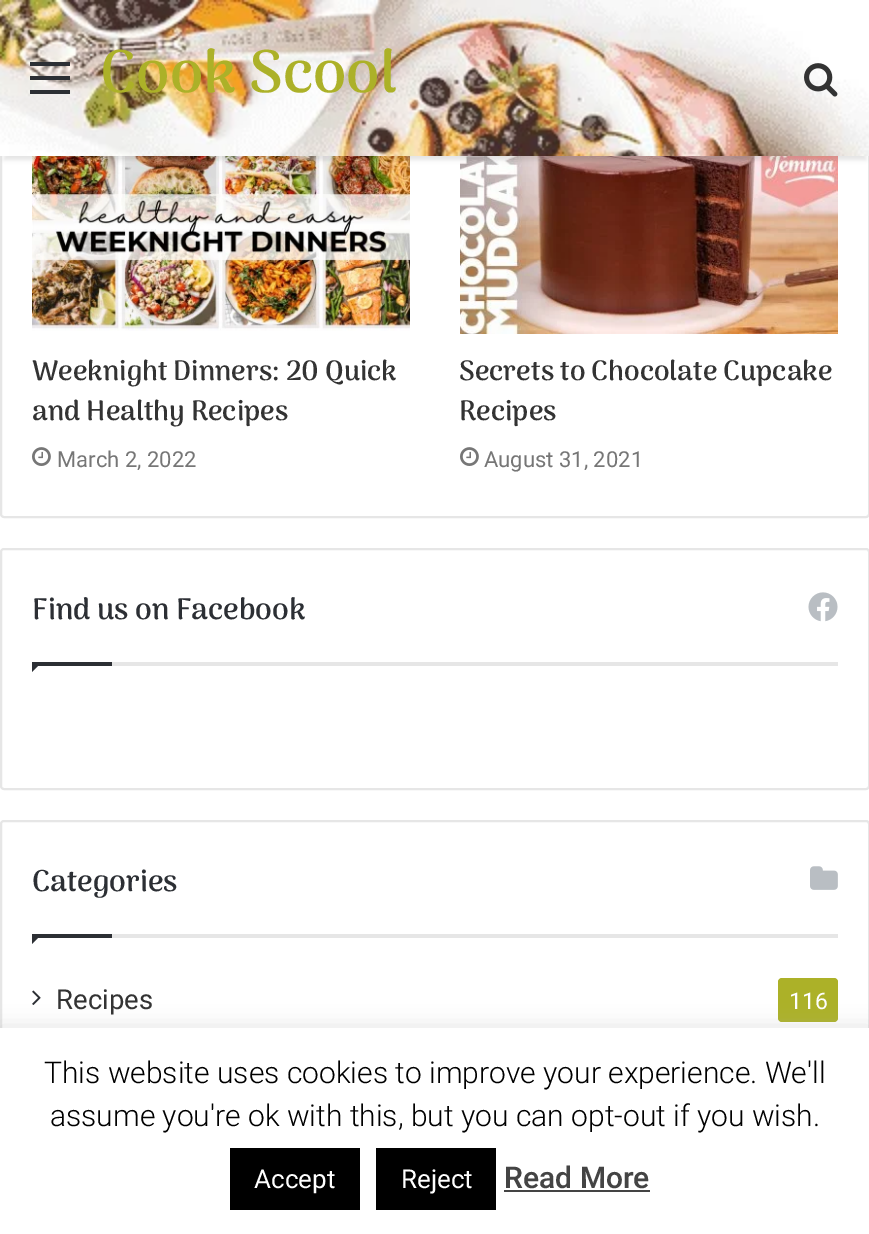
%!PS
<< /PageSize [869 1234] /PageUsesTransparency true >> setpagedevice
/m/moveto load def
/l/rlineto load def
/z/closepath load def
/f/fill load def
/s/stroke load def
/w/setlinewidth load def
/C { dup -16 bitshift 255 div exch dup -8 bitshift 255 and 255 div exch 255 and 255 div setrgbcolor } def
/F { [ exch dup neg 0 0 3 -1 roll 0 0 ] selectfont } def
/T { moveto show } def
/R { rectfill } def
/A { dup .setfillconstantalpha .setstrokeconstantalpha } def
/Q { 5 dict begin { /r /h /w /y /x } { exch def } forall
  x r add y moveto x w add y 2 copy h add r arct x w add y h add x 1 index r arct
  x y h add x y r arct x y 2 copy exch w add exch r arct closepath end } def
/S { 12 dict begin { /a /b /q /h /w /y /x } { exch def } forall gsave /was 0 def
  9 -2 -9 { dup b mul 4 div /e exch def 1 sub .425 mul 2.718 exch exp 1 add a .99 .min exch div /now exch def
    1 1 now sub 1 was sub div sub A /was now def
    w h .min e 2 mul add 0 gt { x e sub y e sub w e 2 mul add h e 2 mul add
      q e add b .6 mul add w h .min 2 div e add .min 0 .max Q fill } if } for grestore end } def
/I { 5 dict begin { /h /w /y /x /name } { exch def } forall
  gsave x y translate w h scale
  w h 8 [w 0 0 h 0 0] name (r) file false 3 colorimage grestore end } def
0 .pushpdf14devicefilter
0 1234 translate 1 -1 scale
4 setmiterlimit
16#FFFFFF C
0 0 869 1234 R
16#E6E6E6 C
2 w
1 -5 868 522 3 Q s
(3.rgb) 32 156 378 175 I
(5.rgb) 460 156 378 178 I
16#000000 C
4 12 862 148 0 2 .1 S
(1.rgb) 0 0 869 156 I
16#2C2F34 C
30 76 40 4 R
30 62 40 4 R
30 90 40 4 R
/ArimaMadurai-Bold 60 F
16#ACB128 C
(Cook Scool) 100 92 T
(2.rgb) 804 63 34 34 I
/ArimaMadurai-Bold 28 F
16#333333 C
(Weeknight Dinners: 20 Quick) 32 380 T
(and Healthy Recipes) 32 420 T
(4.rgb) 32 447 19 19 I
/Roboto-Regular 22 F
16#767676 C
(March 2, 2022) 57 467 T
/ArimaMadurai-Bold 28 F
16#333333 C
(Secrets to Chocolate Cupcake) 459 380 T
(Recipes) 459 420 T
(4.rgb) 460 447 19 19 I
/Roboto-Regular 22 F
16#767676 C
(August 31, 2021) 484 467 T
16#E6E6E6 C
1 549 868 240 3 Q s
112 662 726 4 R
/ArimaMadurai-Bold 30 F
16#2C2F34 C
(Find us on Facebook) 32 619 T
(6.rgb) 808 592 30 30 I
32 662 m 10 0 l -10 10 l z f
32 662 80 4 R
16#E6E6E6 C
1 821 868 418 3 Q s
112 934 726 4 R
16#2C2F34 C
(Categories) 32 891 T
(7.rgb) 810 866 28 24 I
32 934 m 10 0 l -10 10 l z f
32 934 80 4 R
(8.rgb) 32 990 9 15 I
/Roboto-Regular 27.5 F
16#333333 C
(Recipes) 56 1009 T
16#ACB128 C
778 978 60 44 4 Q f
/Roboto-Regular 23 F
16#FFFFFF C
(116) 789 1009 T
16#ACABAB C
0 1026 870 206 0 10 .3 S
16#FFFFFF C
0 1028 869 206 R
/Roboto-Light 30 F
16#000000 C
(This website uses cookies to improve your experience. We'll) 44 1083 T
(assume you're ok with this, but you can opt-out if you wish.) 50 1126 T
230 1148 130 62 R
/Roboto-Regular 26 F
16#FFFFFF C
(Accept) 254 1188 T
16#000000 C
376 1148 120 62 R
16#FFFFFF C
(Reject) 401 1188 T
/Roboto-Medium 30 F
16#444444 C
(Read More) 504 1188 T
504 1190 146 2 R
.poppdf14devicefilter showpage
